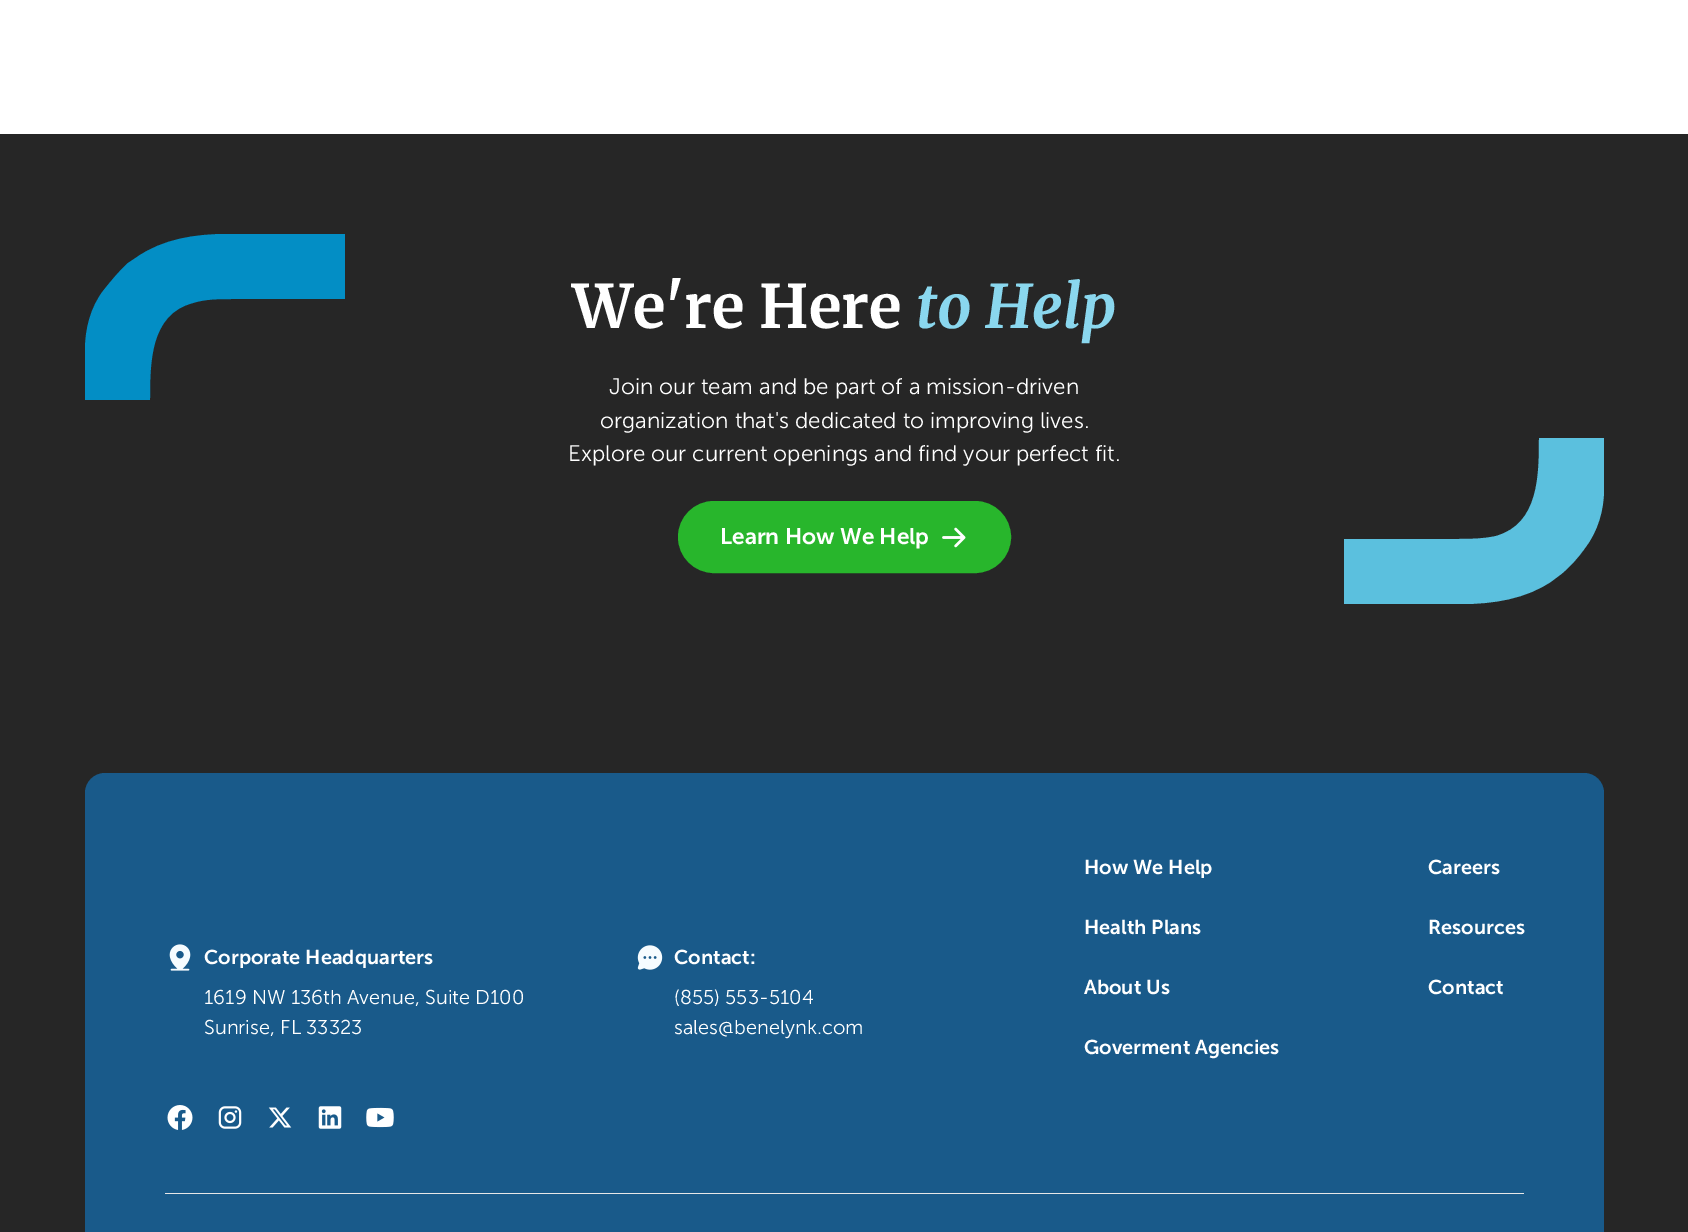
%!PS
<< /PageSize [1688 1232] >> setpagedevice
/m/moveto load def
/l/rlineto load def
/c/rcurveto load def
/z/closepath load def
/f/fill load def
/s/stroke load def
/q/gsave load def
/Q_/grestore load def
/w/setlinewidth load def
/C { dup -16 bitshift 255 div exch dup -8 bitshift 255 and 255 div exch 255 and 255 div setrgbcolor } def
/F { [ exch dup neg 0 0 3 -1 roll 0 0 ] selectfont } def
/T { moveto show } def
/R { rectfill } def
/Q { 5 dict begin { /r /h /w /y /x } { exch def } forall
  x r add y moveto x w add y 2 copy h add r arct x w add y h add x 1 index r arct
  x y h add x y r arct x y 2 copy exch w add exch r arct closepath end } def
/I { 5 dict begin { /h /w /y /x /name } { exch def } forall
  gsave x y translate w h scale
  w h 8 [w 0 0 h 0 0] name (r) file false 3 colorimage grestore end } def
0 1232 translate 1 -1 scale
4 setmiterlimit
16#FFFFFF C
0 0 1688 1232 R
16#262626 C
0 134 1688 1098 R
16#038EC5 C
150 400 m -65 0 l 0 -50 l 0 -22 6 -43 18 -59 c 8 -10 17 -21 25 -28 c 9 -6 l 26 -18 58 -23 90 -23 c 118 0 l 0 65 l -113 0 l -13 0 -27 0 -39 4 c -43 11 -43 60 -43 97 c z f
/Merriweather-Bold 60 F
16#FFFFFF C
(We're Here) 572 328 T
/Merriweather-BoldItalic 60 F
16#8AD7EE C
(to Help) 916 328 T
/MuseoSans-Light 22.5 F
16#FFFFFF C
(Join our team and be part of a mission-driven) 609 394 T
(organization that's dedicated to improving lives.) 600 428 T
(Explore our current openings and find your perfect fit.) 568 461 T
16#28B62C C
679.5 502.5 330 69 34.5 Q q f Q_
3 w
s
/MuseoSans-SemiBold 22.5 F
16#FFFFFF C
(Learn How We Help) 720 544 T
(1.rgb) 942 527 24 21 I
16#5BC0DE C
1539 438 m 65 0 l 0 51 l 0 21 -6 42 -19 59 c -7 10 -16 20 -25 27 c -8 6 l -26 18 -59 23 -90 23 c -118 0 l 0 -65 l 113 0 l 13 0 26 0 39 -3 c 43 -12 43 -61 43 -98 c z f
16#195A8A C
85 773 1519 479 20 Q f
(2.rgb) 169 944 22 27 I
/MuseoSans-SemiBold 20 F
16#FFFFFF C
(Corporate Headquarters) 204 964 T
/MuseoSans-Light 20 F
(1619 NW 136th Avenue, Suite D100) 204 1004 T
(Sunrise, FL 33323) 204 1034 T
(3.rgb) 637 945 26 25 I
/MuseoSans-SemiBold 20 F
(Contact:) 674 964 T
/MuseoSans-Light 20 F
(\(855\) 553-5104) 674 1004 T
(sales@benelynk.com) 674 1034 T
(4.rgb) 167 1105 26 25 I
(5.rgb) 218 1106 24 23 I
(6.rgb) 268 1107 24 21 I
(7.rgb) 318 1106 24 23 I
(8.rgb) 366 1107 28 21 I
/MuseoSans-SemiBold 20 F
(How We Help) 1084 874 T
(Health Plans) 1084 934 T
(About Us) 1084 994 T
(Goverment Agencies) 1084 1054 T
(Careers) 1428 874 T
(Resources) 1428 934 T
(Contact) 1428 994 T
16#E7E7E7 C
165 1193 1359 1 R
showpage
